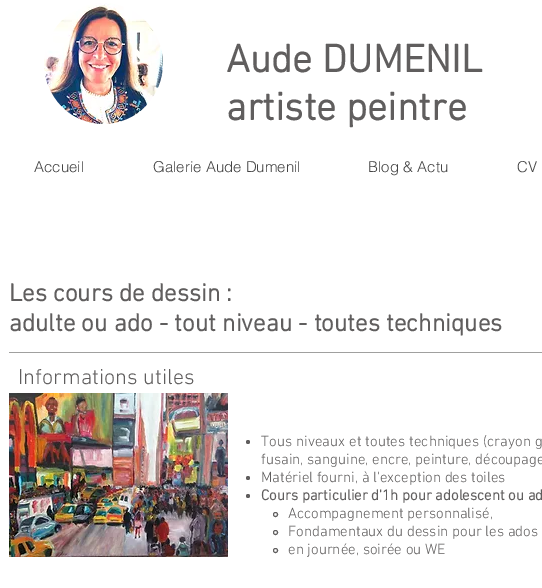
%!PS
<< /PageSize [542 588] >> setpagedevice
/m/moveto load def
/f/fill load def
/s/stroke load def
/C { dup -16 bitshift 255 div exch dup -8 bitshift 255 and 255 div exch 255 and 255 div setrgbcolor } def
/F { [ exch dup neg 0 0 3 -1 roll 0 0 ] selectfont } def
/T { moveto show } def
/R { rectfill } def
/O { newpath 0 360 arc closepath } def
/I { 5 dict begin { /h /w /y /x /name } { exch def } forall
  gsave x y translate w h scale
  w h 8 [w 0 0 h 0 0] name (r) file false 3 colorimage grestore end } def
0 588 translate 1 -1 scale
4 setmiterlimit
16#FFFFFF C
0 0 542 588 R
(1.rgb) 44 3 119 121 I
/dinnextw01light-Bold 40 F
16#605E5E C
(Aude DUMENIL) 226 72 T
(artiste peintre) 226 120 T
/helvetica-Light 15 F
16#444444 C
(Accueil) 34 172 T
(Galerie Aude Dumenil) 153 172 T
(Blog & Actu) 368 172 T
(CV) 517 172 T
/dinnextw01light-Bold 25 F
16#605E5E C
(Les cours de dessin :) 9 301 T
(adulte ou ado - tout niveau - toutes techniques) 9 331 T
16#A0A09F C
9 352 533 1 R
/dinnextw01light-Light 22 F
16#605E5E C
(Informations utiles) 18 384 T
(2.rgb) 9 393 219 164 I
248 442 2 O f
/dinnextw01light-Light 15 F
261 446 m .5 0 32 (Tous niveaux et toutes techniques \(crayon g) widthshow
(fusain, sanguine, encre, peinture, découpage) 261 464 T
248 478 2 O f
(Matériel fourni, à l'exception des toiles) 261 482 T
248 496 2 O f
/dinnextw01light-Bold 15 F
(Cours particulier d'1h pour adolescent ou ad) 261 500 T
275.5 514.5 2 O s
/dinnextw01light-Light 15 F
(Accompagnement personnalisé,) 288 518 T
275.5 532.5 2 O s
(Fondamentaux du dessin pour les ados) 288 536 T
275.5 550.5 2 O s
(en journée, soirée ou WE) 288 554 T
showpage
